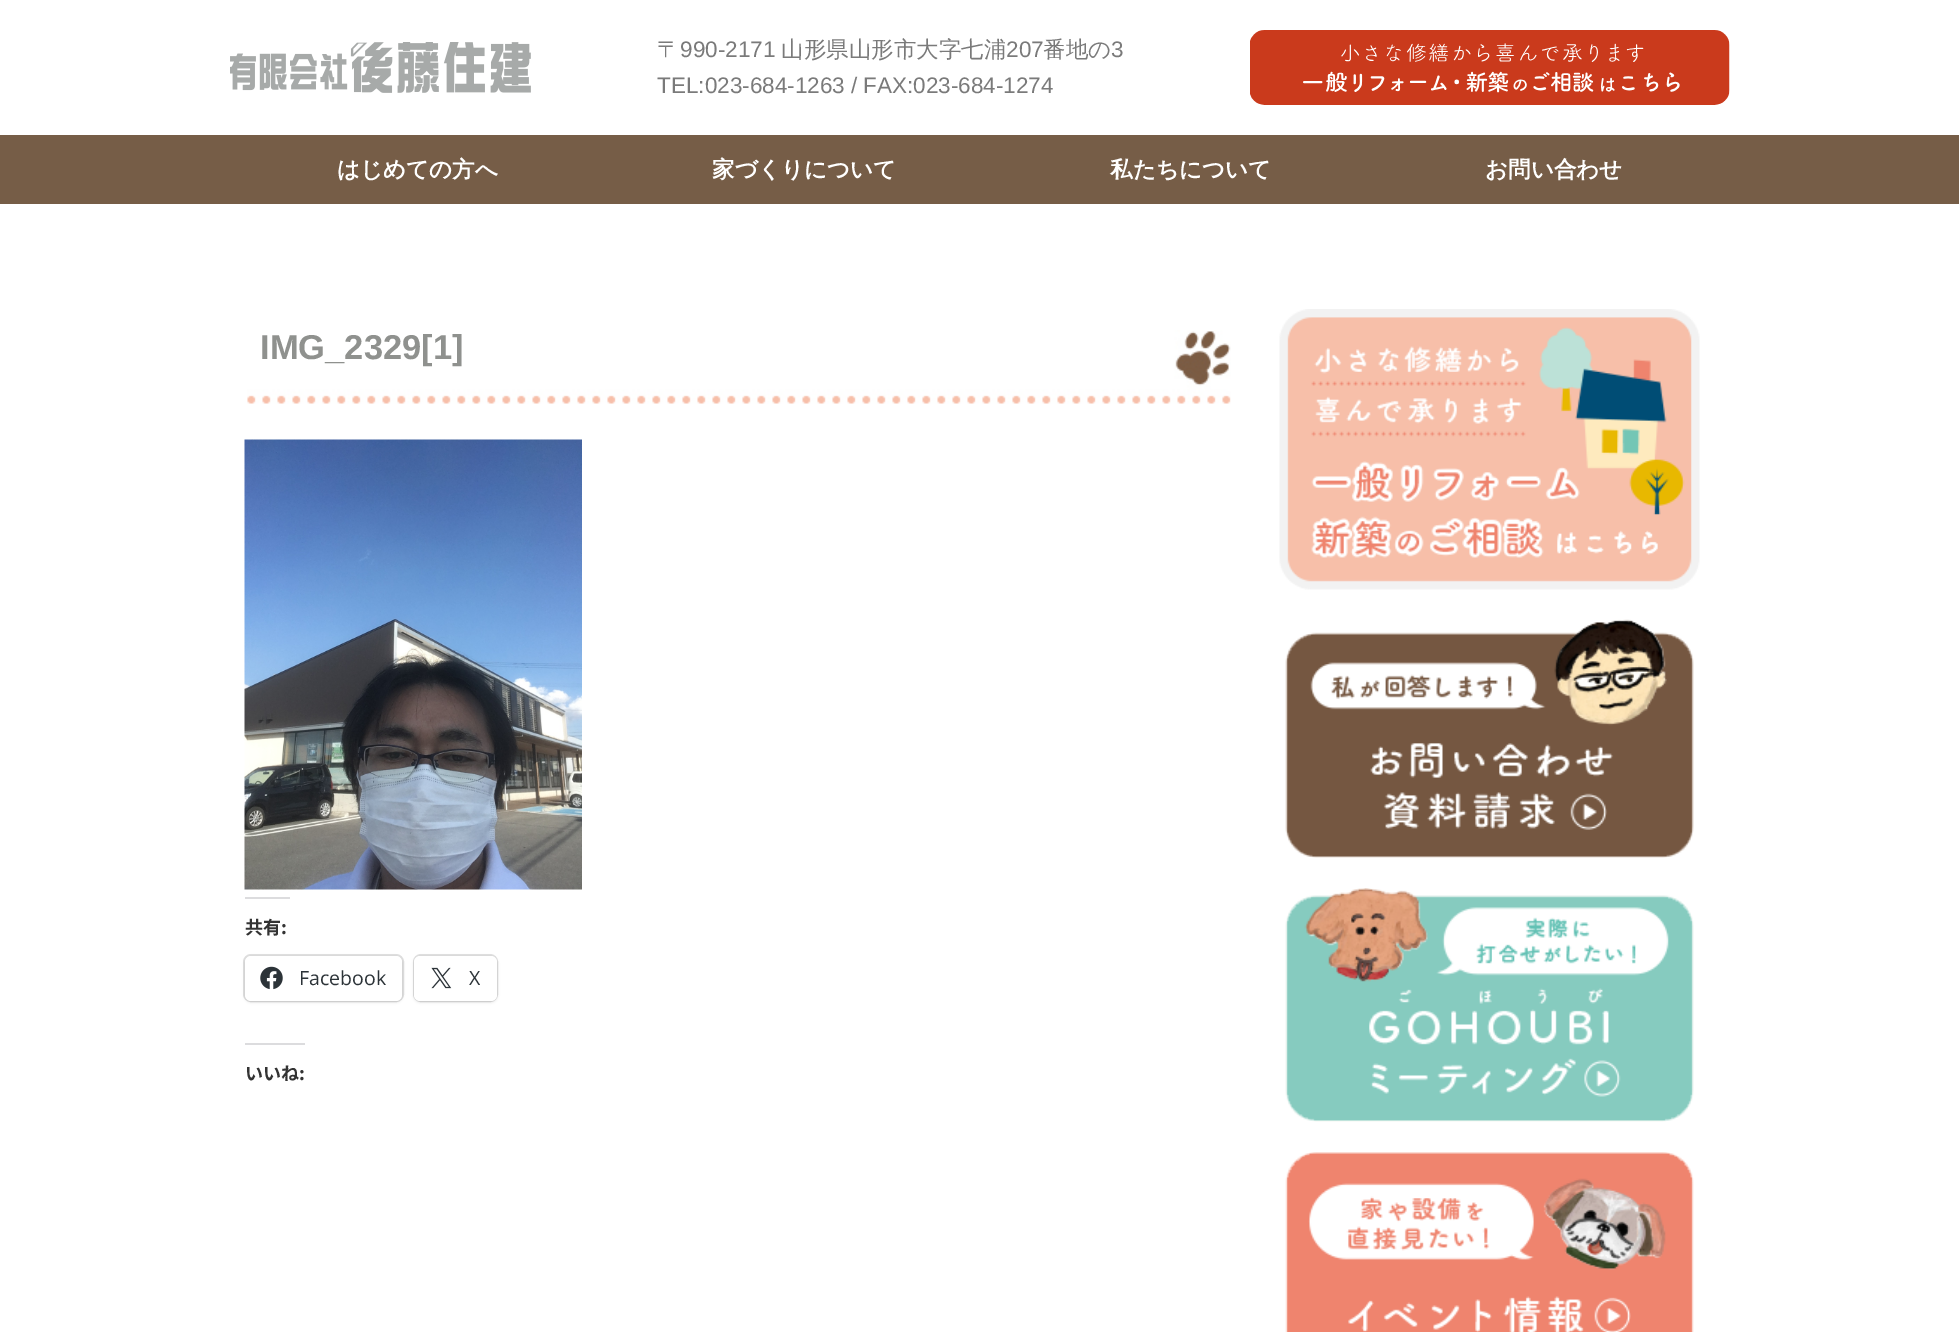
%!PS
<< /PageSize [1959 1332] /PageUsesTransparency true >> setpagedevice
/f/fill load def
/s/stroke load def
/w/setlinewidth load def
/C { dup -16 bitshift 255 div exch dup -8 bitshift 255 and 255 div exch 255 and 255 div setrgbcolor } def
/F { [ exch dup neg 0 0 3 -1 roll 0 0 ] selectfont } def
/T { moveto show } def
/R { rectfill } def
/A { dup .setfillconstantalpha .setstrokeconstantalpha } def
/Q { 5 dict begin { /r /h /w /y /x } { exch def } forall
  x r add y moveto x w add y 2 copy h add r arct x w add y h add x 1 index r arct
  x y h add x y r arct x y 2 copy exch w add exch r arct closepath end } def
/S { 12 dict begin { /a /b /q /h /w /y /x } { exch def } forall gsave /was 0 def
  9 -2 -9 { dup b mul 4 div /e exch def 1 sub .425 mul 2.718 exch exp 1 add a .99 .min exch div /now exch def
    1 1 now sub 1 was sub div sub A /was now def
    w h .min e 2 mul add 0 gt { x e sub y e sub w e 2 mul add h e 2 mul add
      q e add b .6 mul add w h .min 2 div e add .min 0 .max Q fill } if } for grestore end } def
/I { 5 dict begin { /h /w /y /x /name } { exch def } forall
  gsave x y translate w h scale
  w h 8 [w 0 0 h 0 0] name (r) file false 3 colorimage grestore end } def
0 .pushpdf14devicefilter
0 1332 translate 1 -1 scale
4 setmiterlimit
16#FFFFFF C
0 0 1959 1332 R
(1.rgb) 230 42 301 51 I
/WenQuanYiZenHei-Medium 22.5 F
16#7A7A7A C
(〒) 657 57 T
/LiberationSans-Regular 22.5 F
(990-2171) 680 57 T
/WenQuanYiZenHei-Medium 22.5 F
(山形県山形市大字七浦) 781 57 T
/LiberationSans-Regular 22.5 F
(207) 1006 57 T
/WenQuanYiZenHei-Medium 22.5 F
(番地の) 1043 57 T
/LiberationSans-Regular 22.5 F
(3) 1111 57 T
(TEL:023-684-1263 / FAX:023-684-1274) 657 93 T
(2.rgb) 1250 30 480 75 I
16#765D47 C
0 135 1959 69 R
/WenQuanYiZenHei-Bold 22.5 F
16#FFFFFF C
(はじめての方へ) 337 177 T
(家づくりについて) 712 177 T
(私たちについて) 1110 177 T
(お問い合わせ) 1485 177 T
(3.rgb) 247 330 984 74 I
/LiberationSans-Bold 34.5 F
16#8F918E C
(IMG_2329[1]) 260 359 T
(4.rgb) 244 439 338 451 I
16#DCDCDE C
245 897 45 2 R
/NotoSansJP-Bold 18 F
16#333333 C
(共有:) 245 934 T
16#E0E0E0 C
2 w
244 955 159 46 7 Q s
16#000000 C
245 957 157 45 6 1.5 .12 S
16#FFFFFF C
245 956 157 45 6 Q f
(5.rgb) 260 966 23 24 I
/OpenSans-Regular 19.5 F
16#2C3338 C
(Facebook) 299 985 T
16#E0E0E0 C
414 955 83 46 7 Q s
16#000000 C
414 957 83 45 6 1.5 .12 S
16#FFFFFF C
414 956 83 45 6 Q f
(6.rgb) 431 967 21 22 I
16#2C3338 C
(X) 469 985 T
16#DCDCDE C
245 1043 60 2 R
/NotoSansJP-Bold 18 F
16#333333 C
(いいね:) 245 1080 T
(7.rgb) 1279 309 421 281 I
(8.rgb) 1285 619 409 239 I
(9.rgb) 1285 888 409 234 I
(10.rgb) 1285 1152 409 180 I
.poppdf14devicefilter showpage
